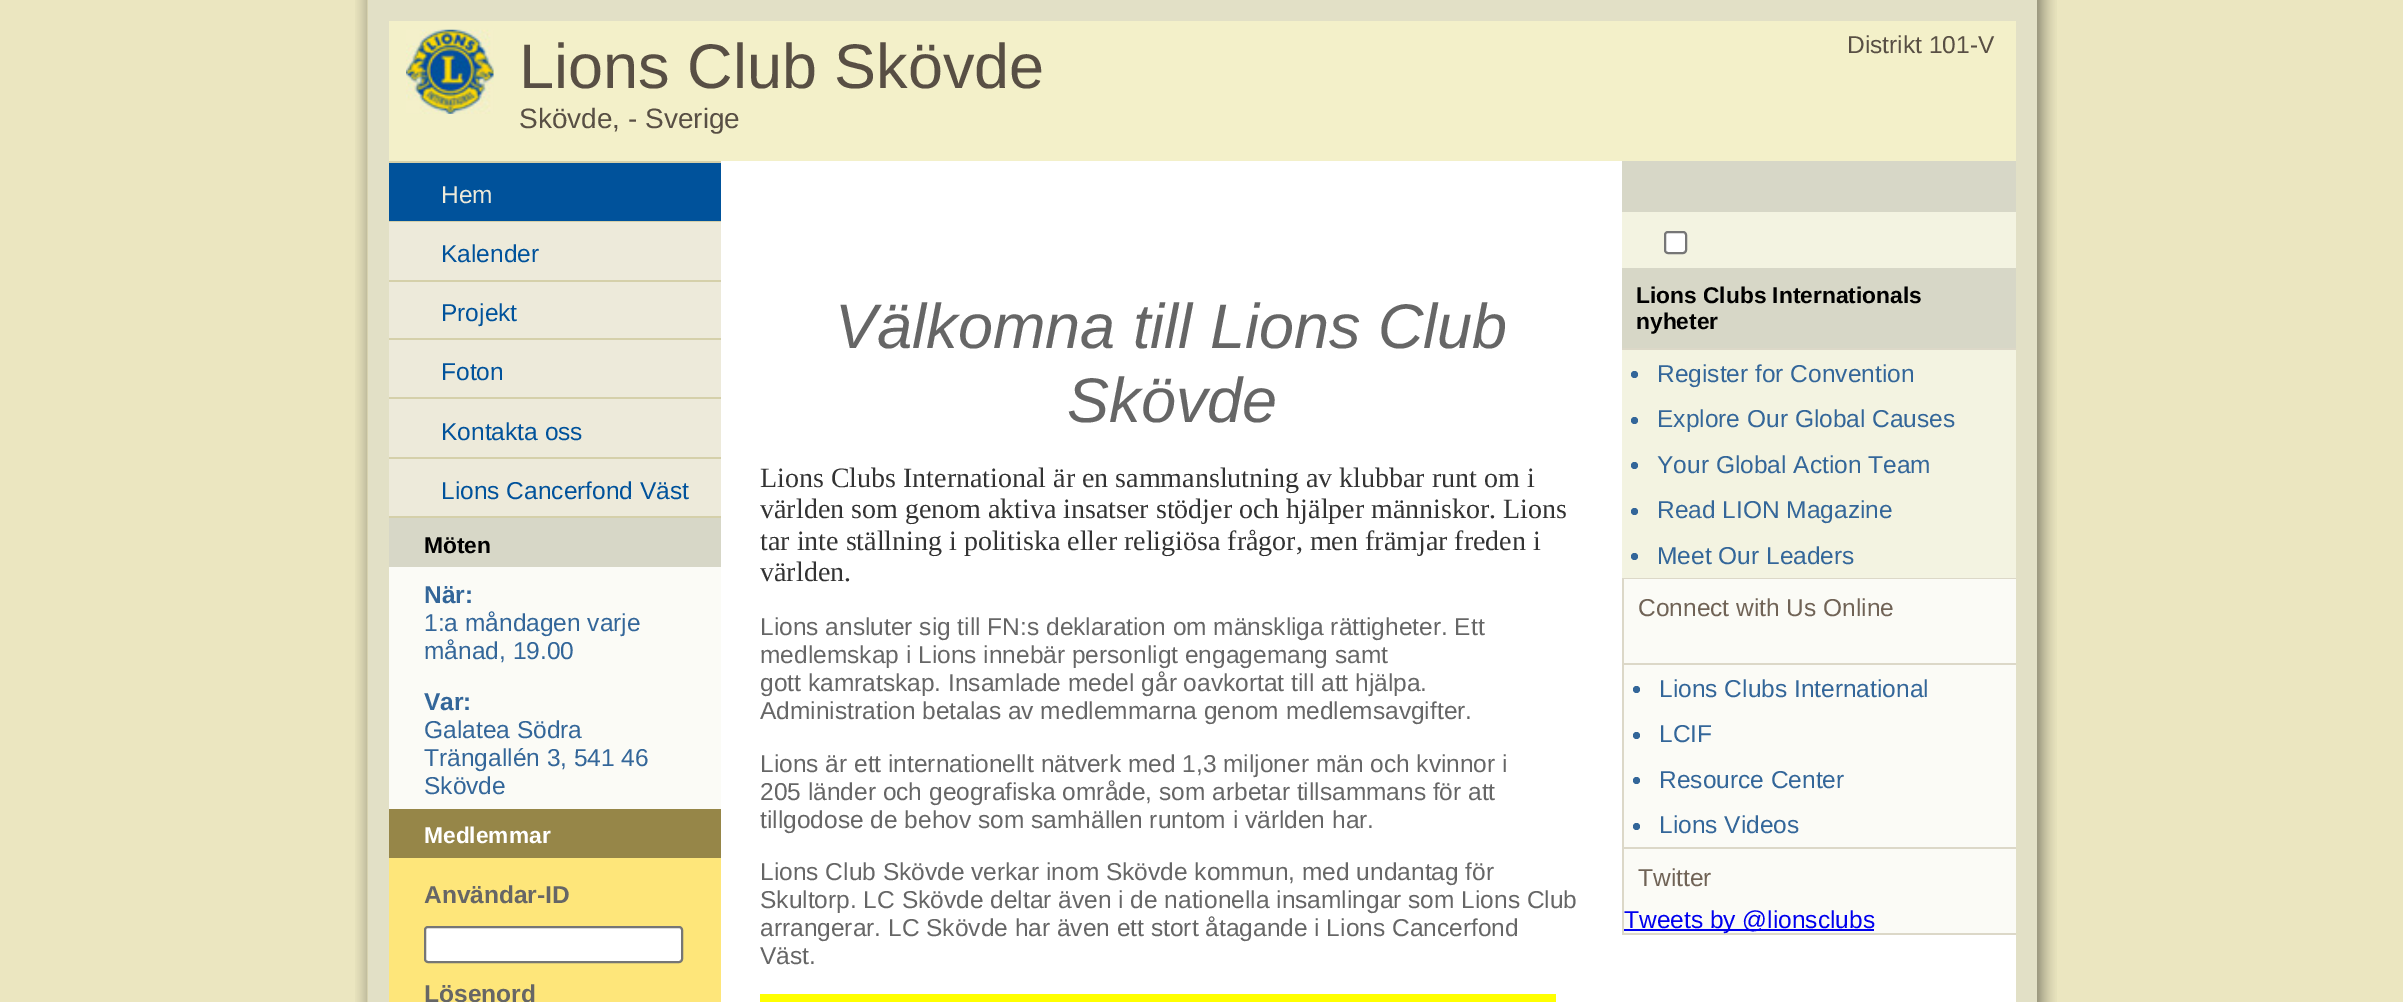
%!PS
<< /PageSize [2403 1002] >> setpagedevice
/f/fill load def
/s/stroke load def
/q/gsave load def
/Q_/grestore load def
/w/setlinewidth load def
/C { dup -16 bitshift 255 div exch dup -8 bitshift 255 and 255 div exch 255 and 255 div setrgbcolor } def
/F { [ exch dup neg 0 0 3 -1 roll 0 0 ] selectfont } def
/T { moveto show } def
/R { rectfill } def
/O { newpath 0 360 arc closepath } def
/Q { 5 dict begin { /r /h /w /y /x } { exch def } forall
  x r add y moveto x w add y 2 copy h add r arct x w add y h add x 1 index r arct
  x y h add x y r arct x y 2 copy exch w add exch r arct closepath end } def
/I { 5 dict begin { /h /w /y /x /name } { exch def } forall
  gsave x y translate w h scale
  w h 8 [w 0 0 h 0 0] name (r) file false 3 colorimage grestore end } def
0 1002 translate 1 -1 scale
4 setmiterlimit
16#EBE6C0 C
0 0 2403 1002 R
(1.rgb) 355 0 13 1002 I
16#E2E0C6 C
368 0 1669 1002 R
16#F3F0C9 C
389 21 1627 140 R
(2.rgb) 406 29 88 85 I
/LiberationSans-Regular 63 F
16#584F44 C
(Lions Club Skövde) 519 88 T
/LiberationSans-Regular 28 F
(Skövde, - Sverige) 519 128 T
/LiberationSans-Regular 24.5 F
(Distrikt 101-V) 1847 53 T
16#FFFFFF C
721 161 1295 841 R
16#D5D0AA C
389 161 332 2 R
389 221 332 1 R
16#00529B C
389 163 332 58 R
16#EDEADA C
(Hem) 441 203 T
16#D5D0AA C
389 280 332 2 R
16#EDEADA C
389 222 332 58 R
16#00529B C
(Kalender) 441 262 T
16#D5D0AA C
389 338 332 2 R
16#EDEADA C
389 282 332 56 R
16#00529B C
(Projekt) 441 321 T
16#D5D0AA C
389 397 332 2 R
16#EDEADA C
389 340 332 57 R
16#00529B C
(Foton) 441 380 T
16#D5D0AA C
389 457 332 2 R
16#EDEADA C
389 399 332 58 R
16#00529B C
(Kontakta oss) 441 440 T
16#D5D0AA C
389 516 332 2 R
16#EDEADA C
389 459 332 57 R
16#00529B C
(Lions Cancerfond Väst) 441 499 T
16#FBFBF6 C
389 567 332 242 R
16#D7D7C7 C
389 518 332 49 R
/LiberationSans-Bold 22.75 F
16#000000 C
(Möten) 424 553 T
/LiberationSans-Bold 24.5 F
16#336699 C
(När:) 424 603 T
/LiberationSans-Regular 24.5 F
(1:a måndagen varje) 424 631 T
(månad, 19.00) 424 659 T
/LiberationSans-Bold 24.5 F
(Var:) 424 710 T
/LiberationSans-Regular 24.5 F
(Galatea Södra) 424 738 T
(Trängallén 3, 541 46) 424 766 T
(Skövde) 424 794 T
16#FEE67A C
389 858 332 144 R
16#968648 C
389 809 332 49 R
/LiberationSans-Bold 22.75 F
16#FFFFFF C
(Medlemmar) 424 843 T
/LiberationSans-Bold 24.5 F
16#666666 C
(Användar-ID) 424 903 T
16#FFFFFF C
425 927 257 35 3 Q q f Q_
16#767676 C
2 w
s
16#666666 C
(Lösenord) 424 1002 T
/LiberationSans-Italic 63 F
(Välkomna till Lions Club) 835 348 T
(Skövde) 1067 422 T
/LiberationSerif-Regular 28 F
16#333333 C
(Lions Clubs International är en sammanslutning av klubbar runt om i) 760 487 T
(världen som genom aktiva insatser stödjer och hjälper människor. Lions) 760 518 T
(tar inte ställning i politiska eller religiösa frågor, men främjar freden i) 760 550 T
(världen.) 760 581 T
/LiberationSans-Regular 24.5 F
16#666666 C
(Lions ansluter sig till FN:s deklaration om mänskliga rättigheter. Ett) 760 635 T
(medlemskap i Lions innebär personligt engagemang samt) 760 663 T
(gott kamratskap. Insamlade medel går oavkortat till att hjälpa.) 760 691 T
(Administration betalas av medlemmarna genom medlemsavgifter.) 760 719 T
(Lions är ett internationellt nätverk med 1,3 miljoner män och kvinnor i) 760 772 T
(205 länder och geografiska område, som arbetar tillsammans för att) 760 800 T
(tillgodose de behov som samhällen runtom i världen har.) 760 828 T
(Lions Club Skövde verkar inom Skövde kommun, med undantag för) 760 880 T
(Skultorp. LC Skövde deltar även i de nationella insamlingar som Lions Club) 760 908 T
(arrangerar. LC Skövde har även ett stort åtagande i Lions Cancerfond) 760 936 T
(Väst.) 760 964 T
16#FFFF00 C
760 994 796 8 R
16#F3F3E1 C
1622 212 394 56 R
16#D7D7C7 C
1622 161 394 51 R
16#FFFFFF C
1665 232 21 21 3 Q q f Q_
16#767676 C
s
16#F3F3E1 C
1622 350 394 228 R
16#D7D7C7 C
1622 268 394 80 R
/LiberationSans-Bold 22.75 F
16#000000 C
(Lions Clubs Internationals) 1636 303 T
(nyheter) 1636 329 T
16#DCD8C8 C
1622 348 394 2 R
16#336699 C
1634.5 374.5 3.5 O f
/LiberationSans-Regular 24.5 F
(Register for Convention) 1657 382 T
1634.5 420.5 3.5 O f
(Explore Our Global Causes) 1657 427 T
1634.5 465.5 3.5 O f
(Your Global Action Team) 1657 473 T
1634.5 511.5 3.5 O f
(Read LION Magazine) 1657 518 T
1634.5 556.5 3.5 O f
(Meet Our Leaders) 1657 564 T
16#DCD8C8 C
1622 578 394 1 R
16#FBFBF6 C
1624 579 392 84 R
16#DCD8C8 C
1622 579 2 84 R
16#706356 C
(Connect with Us Online) 1638 616 T
16#DCD8C8 C
1622 663 394 2 R
16#FBFBF6 C
1624 665 392 182 R
16#DCD8C8 C
1622 665 2 182 R
16#336699 C
1636.5 689.5 3.5 O f
(Lions Clubs International) 1659 697 T
1636.5 735.5 3.5 O f
(LCIF) 1659 742 T
1636.5 780.5 3.5 O f
(Resource Center) 1659 788 T
1636.5 826.5 3.5 O f
(Lions Videos) 1659 833 T
16#DCD8C8 C
1622 847 394 2 R
16#FBFBF6 C
1624 849 392 84 R
16#DCD8C8 C
1622 849 2 84 R
16#706356 C
(Twitter) 1638 886 T
16#0000EE C
1624 929 250 2 R
16#DCD8C8 C
1622 933 394 2 R
16#0000EE C
(Tweets by @lionsclubs) 1624 928 T
(3.rgb) 2037 0 20 1002 I
showpage
